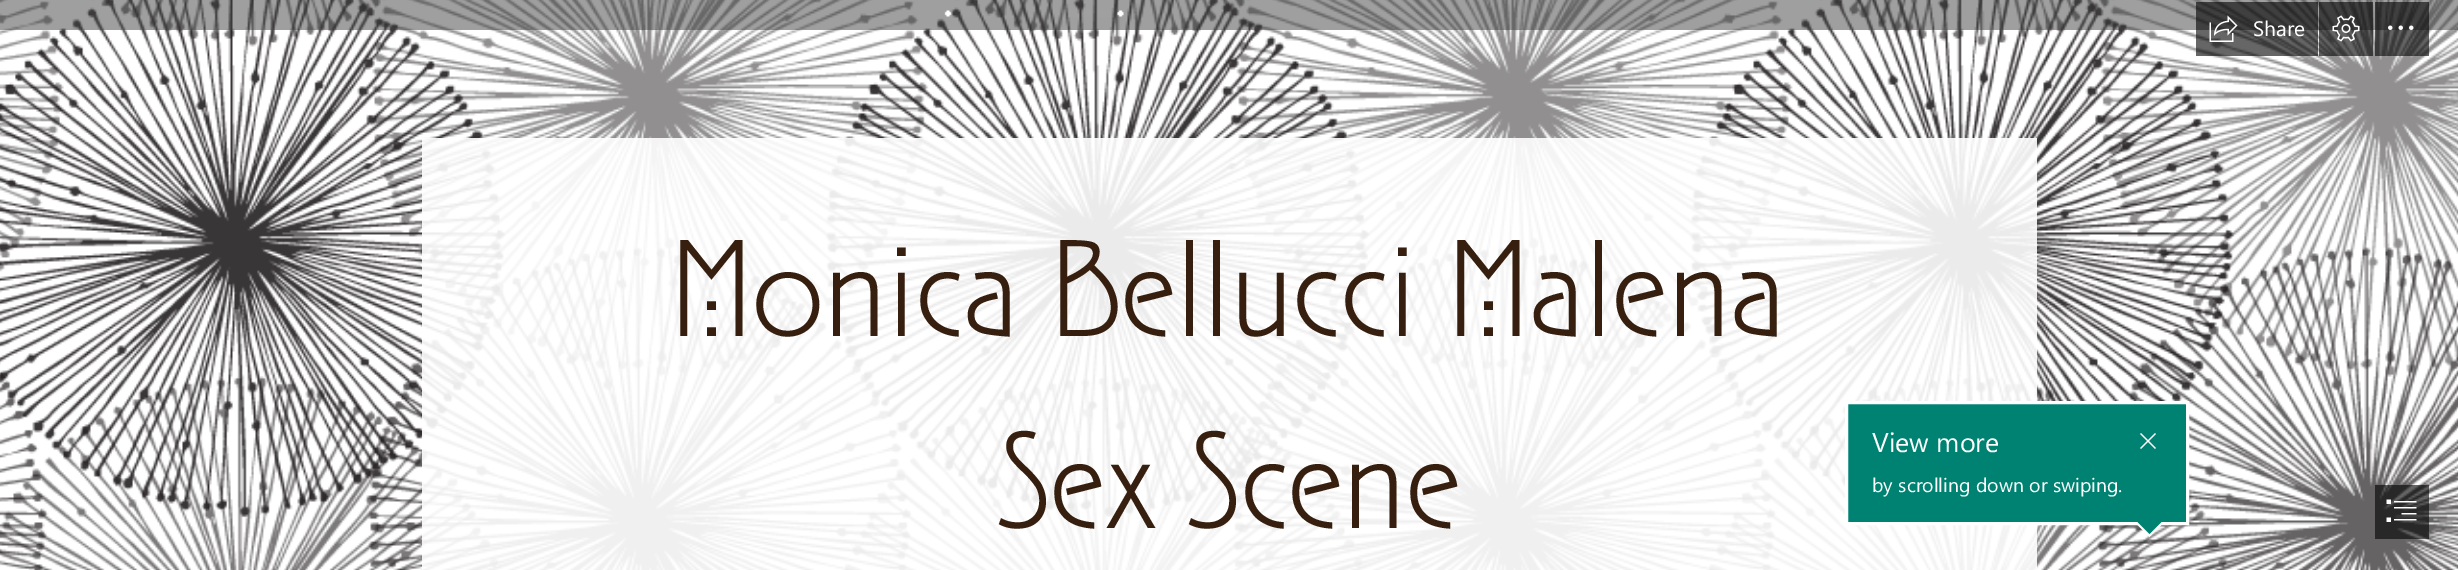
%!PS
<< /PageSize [2458 570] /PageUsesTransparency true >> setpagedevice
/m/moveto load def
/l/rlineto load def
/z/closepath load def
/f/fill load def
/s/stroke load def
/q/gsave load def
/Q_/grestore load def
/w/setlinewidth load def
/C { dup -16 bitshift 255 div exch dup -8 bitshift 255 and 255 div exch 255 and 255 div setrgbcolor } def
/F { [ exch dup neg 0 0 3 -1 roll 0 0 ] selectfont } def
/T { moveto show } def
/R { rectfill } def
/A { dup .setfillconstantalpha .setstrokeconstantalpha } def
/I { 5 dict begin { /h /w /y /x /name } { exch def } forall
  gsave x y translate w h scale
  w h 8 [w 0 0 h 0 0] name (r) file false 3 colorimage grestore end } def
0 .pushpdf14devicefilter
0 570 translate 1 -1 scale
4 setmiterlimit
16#FFFFFF C
0 0 2458 570 R
(5.rgb) 0 0 2458 570 I
0.5 A
16#404040 C
0 0 2458 30 R
0.6 A
16#000000 C
2196 2 122 54 R
1 A
(1.rgb) 2209 15 29 27 I
/SegoeUI-Regular 21 F
16#FFFFFF C
(Share) 2253 36 T
0.6 A
16#000000 C
2319 2 54 54 R
1 A
(2.rgb) 2332 15 28 27 I
0.6 A
2375 2 54 54 R
1 A
(3.rgb) 2388 25 26 5 I
(4.rgb) 944 10 180 7 I
0.9 A
16#FFFFFF C
422 138 1615 432 R
/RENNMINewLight-Light 144 F
1 A
16#361F0F C
(Monica Bellucci Malena) 671 336 T
(Sex Scene) 998 528 T
16#008272 C
1846.5 402.5 m 341 0 l 0 121 l -341 0 l z q f Q_
16#FFFFFF C
3 w
s
/SegoeUI-Regular 27 F
(View more) 1872 452 T
/SegoeUI-Regular 19.5 F
(by scrolling down or swiping.) 1872 492 T
(6.rgb) 2140 433 16 16 I
2134.5 522 m 30 0 l -15 15 l z f
16#008272 C
2137.5 522 m 24 0 l -12 12 l z f
0.6 A
16#000000 C
2375 485 54 54 R
1 A
(7.rgb) 2386 499 31 23 I
.poppdf14devicefilter showpage
